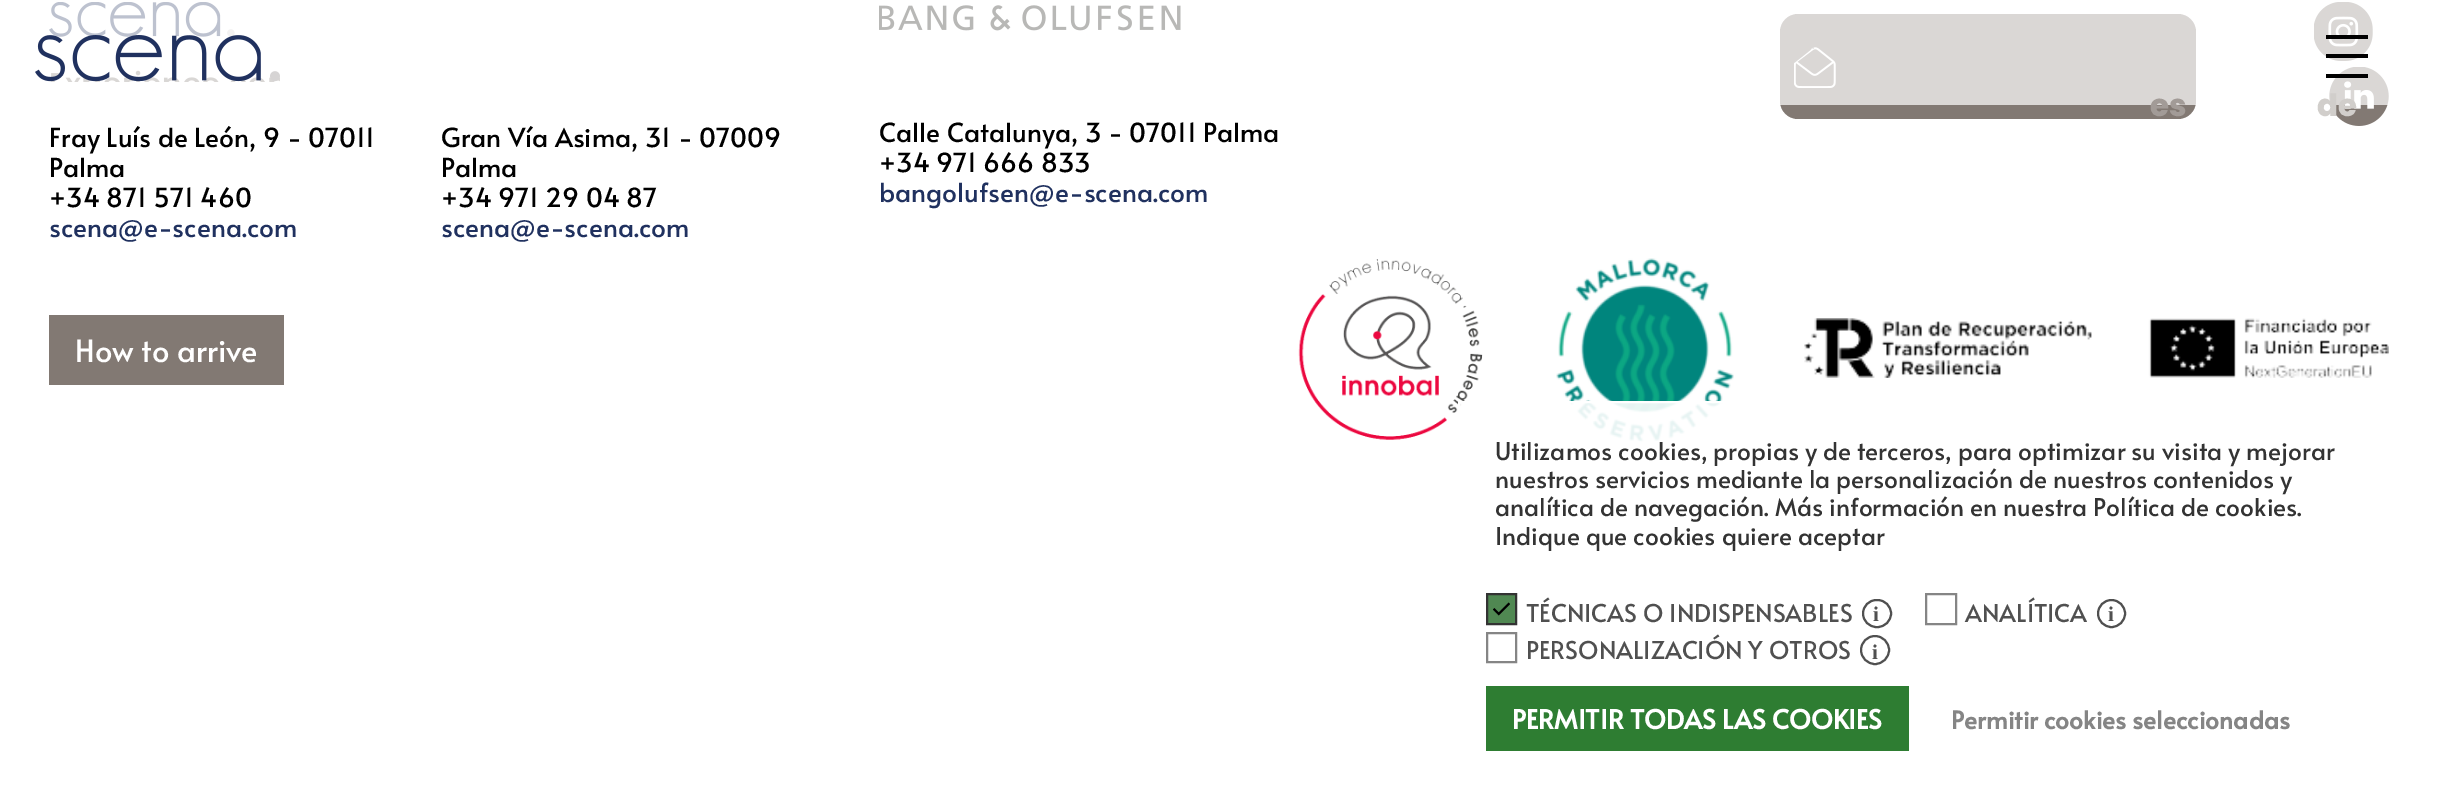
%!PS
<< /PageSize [2437 804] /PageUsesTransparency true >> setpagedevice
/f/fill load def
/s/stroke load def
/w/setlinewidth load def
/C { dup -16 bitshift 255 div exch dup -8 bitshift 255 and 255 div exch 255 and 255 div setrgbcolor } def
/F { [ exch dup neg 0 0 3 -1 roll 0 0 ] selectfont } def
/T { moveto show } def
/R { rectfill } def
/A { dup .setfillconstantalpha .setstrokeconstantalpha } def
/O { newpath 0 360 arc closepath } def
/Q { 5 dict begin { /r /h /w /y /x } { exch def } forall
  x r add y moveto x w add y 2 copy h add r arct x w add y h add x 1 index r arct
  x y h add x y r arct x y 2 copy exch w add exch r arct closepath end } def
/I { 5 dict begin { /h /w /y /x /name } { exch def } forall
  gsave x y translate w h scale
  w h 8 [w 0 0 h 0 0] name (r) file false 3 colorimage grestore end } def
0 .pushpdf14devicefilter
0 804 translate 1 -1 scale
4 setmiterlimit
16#FFFFFF C
0 0 2437 804 R
16#827973 C
1780 14 416 105 18 Q f
(2.rgb) 1794 47 42 41 I
(3.rgb) 2314 2 59 59 I
(4.rgb) 2329 67 60 59 I
(5.rgb) 49 2 186 35 I
(6.rgb) 879 5 302 26 I
0.7 A
16#FFFFFF C
49 2 2340 103 R
1 A
(1.rgb) 35 35 245 47 I
16#000000 C
2326 35 42 4 R
2326 54 42 4 R
2326 74 42 4 R
/Poppins-ExtraBold 30.75 F
16#A29B97 C
(es) 2150 116 T
16#D1CECB C
(de) 2317 116 T
/Alata-Regular 26.25 F
16#000000 C
(Fray Luís de León, 9 - 07011) 49 147 T
(Palma) 49 177 T
(+34 871 571 460) 49 207 T
16#20315F C
(scena@e-scena.com) 49 237 T
16#000000 C
(Gran Vía Asima, 31 - 07009) 441 147 T
(Palma) 441 177 T
(+34 971 29 04 87) 441 207 T
16#20315F C
(scena@e-scena.com) 441 237 T
16#000000 C
(Calle Catalunya, 3 - 07011 Palma) 879 142 T
(+34 971 666 833) 879 172 T
16#20315F C
(bangolufsen@e-scena.com) 879 202 T
16#827973 C
49 315 235 70 R
/Alata-Regular 30.75 F
16#FFFFFF C
(How to arrive) 75 362 T
(7.rgb) 1298 259 185 181 I
(8.rgb) 1556 258 178 185 I
(9.rgb) 1804 318 585 60 I
0.9 A
1460 403 261 40 R
1 A
2 w
1459 402 960 385 rectstroke
/Alata-Regular 24.5 F
16#333333 C
(Utilizamos cookies, propias y de terceros, para optimizar su visita y mejorar) 1495 460 T
(nuestros servicios mediante la personalización de nuestros contenidos y) 1495 488 T
(analítica de navegación. Más información en nuestra Política de cookies.) 1495 516 T
(Indique que cookies quiere aceptar) 1495 545 T
16#508852 C
1488 595 27 28 R
(10.rgb) 1493 602 17 14 I
16#333333 C
1487 594 29 30 rectstroke
16#505050 C
(TÉCNICAS O INDISPENSABLES) 1526 622 T
1863 600 28 27 13.5 Q s
/LiberationSerif-Bold 21 F
(i) 1873 621 T
16#858585 C
1926 594 30 30 rectstroke
/Alata-Regular 24.5 F
16#505050 C
(ANALÍTICA) 1965 622 T
2111.5 613.5 13.5 O s
/LiberationSerif-Bold 21 F
(i) 2108 621 T
16#858585 C
1487 633 29 29 rectstroke
/Alata-Regular 24.5 F
16#505050 C
(PERSONALIZACIÓN Y OTROS) 1526 659 T
1875 650 14 O s
/LiberationSerif-Bold 21 F
(i) 1872 659 T
16#2E7D32 C
1486 686 423 65 R
/Alata-Bold 26.25 F
16#FFFFFF C
(PERMITIR TODAS LAS COOKIES) 1512 729 T
/Alata-Bold 24.5 F
16#858585 C
(Permitir cookies seleccionadas) 1951 729 T
.poppdf14devicefilter showpage
